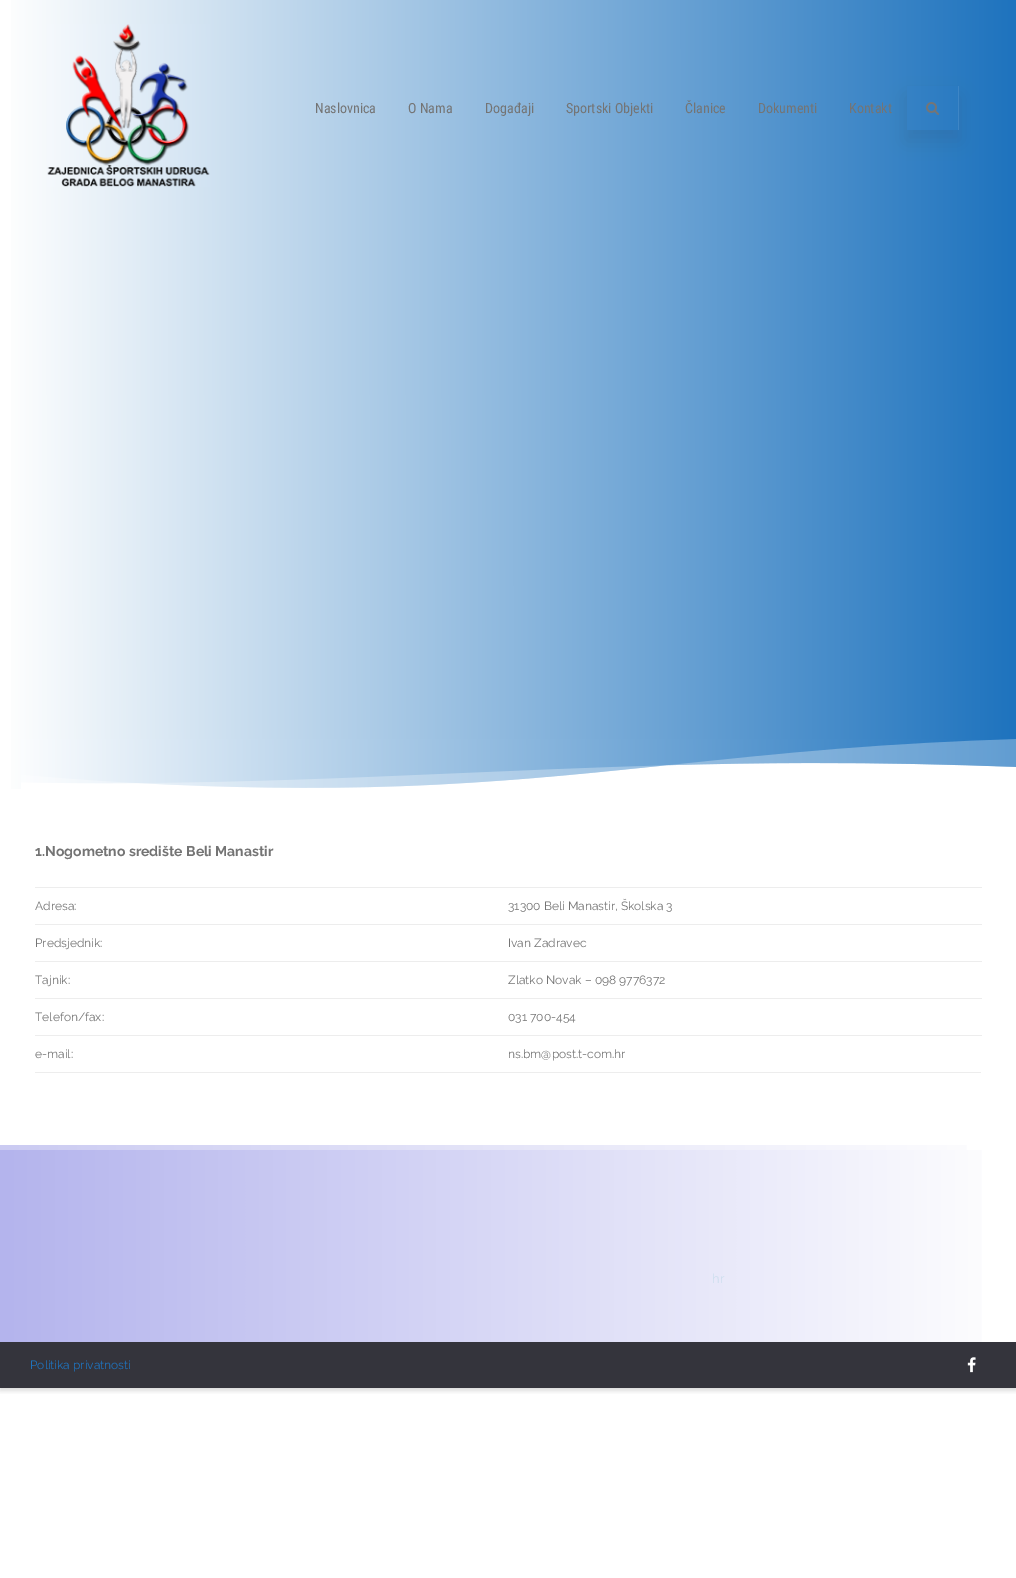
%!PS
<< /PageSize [1016 1578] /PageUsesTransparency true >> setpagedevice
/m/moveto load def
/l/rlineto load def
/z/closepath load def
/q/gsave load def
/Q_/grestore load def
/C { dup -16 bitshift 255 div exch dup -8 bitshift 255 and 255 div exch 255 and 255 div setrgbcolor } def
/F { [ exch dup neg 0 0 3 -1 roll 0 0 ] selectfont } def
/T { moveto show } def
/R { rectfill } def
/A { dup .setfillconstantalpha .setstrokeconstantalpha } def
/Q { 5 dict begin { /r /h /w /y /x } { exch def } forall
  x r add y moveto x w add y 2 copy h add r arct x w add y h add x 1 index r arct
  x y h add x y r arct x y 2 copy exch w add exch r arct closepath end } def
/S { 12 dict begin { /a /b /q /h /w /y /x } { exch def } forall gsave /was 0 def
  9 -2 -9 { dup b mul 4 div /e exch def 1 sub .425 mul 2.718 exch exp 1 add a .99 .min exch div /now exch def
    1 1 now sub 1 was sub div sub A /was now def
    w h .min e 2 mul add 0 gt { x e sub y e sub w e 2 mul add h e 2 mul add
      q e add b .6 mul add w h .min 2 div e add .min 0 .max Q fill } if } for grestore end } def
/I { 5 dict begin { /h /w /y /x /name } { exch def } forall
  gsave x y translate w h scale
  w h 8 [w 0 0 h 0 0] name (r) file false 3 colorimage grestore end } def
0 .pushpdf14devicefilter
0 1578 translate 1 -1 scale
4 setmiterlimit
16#FFFFFF C
0 0 1016 1578 R
q
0 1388 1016 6 rectclip
16#646464 C
0 2 1016 1388 0 3 .3 S
Q_
q 11 0 m 1005 0 l 0 789 l -1005 0 l z clip newpath
<< /ShadingType 2 /ColorSpace /DeviceRGB /Coords [0 395 1016 394] /Extend [true true] /Function << /FunctionType 2 /Domain [0 1] /C0 [1 1 1] /C1 [.118 .451 .745] /N 1 >> >> shfill Q_
(1.rgb) 21 739 995 50 I
(2.rgb) 47 24 163 163 I
/RobotoCondensed-Regular 14 F
16#747474 C
(Naslovnica) 315 113 T
(O Nama) 408 113 T
(Događaji) 485 113 T
(Sportski Objekti) 566 113 T
(Članice) 685 113 T
(Dokumenti) 758 113 T
q
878 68 m 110 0 l 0 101 l -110 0 l z 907 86 m 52 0 l 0 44 l -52 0 l z eoclip newpath
16#404040 C
906 96 54 45 0 9 .13 S
Q_
(Kontakt) 849 113 T
16#3E86C6 C
958 86 1 44 R
(3.rgb) 926 102 13 13 I
/Raleway-Bold 14 F
16#747474 C
(1.Nogometno središte Beli Manastir) 35 856 T
16#EDEDED C
35 1072 946 1 R
/Raleway-Regular 12 F
16#747474 C
(Adresa:) 35 910 T
16#EDEDED C
35 887 947 1 R
16#747474 C
(31300 Beli Manastir, Školska 3) 508 910 T
(Predsjednik:) 35 947 T
16#EDEDED C
35 924 947 1 R
16#747474 C
(Ivan Zadravec) 508 947 T
(Tajnik:) 35 984 T
16#EDEDED C
35 961 947 1 R
16#747474 C
(Zlatko Novak – 098 9776372) 508 984 T
(Telefon/fax:) 35 1021 T
16#EDEDED C
35 998 947 1 R
16#747474 C
(031 700-454) 508 1021 T
(e-mail:) 35 1058 T
16#EDEDED C
35 1035 947 1 R
16#747474 C
(ns.bm@post.t-com.hr) 508 1058 T
q 0 1150 m 982 0 l 0 192 l -982 0 l z clip newpath
<< /ShadingType 2 /ColorSpace /DeviceRGB /Coords [0 1246 1016 1246] /Extend [true true] /Function << /FunctionType 2 /Domain [0 1] /C0 [.706 .706 .929] /C1 [1 1 1] /N 1 >> >> shfill Q_
q 0 1145 m 967 0 l 0 5 l -967 0 l z clip newpath
<< /ShadingType 2 /ColorSpace /DeviceRGB /Coords [0 1246 1016 1246] /Extend [true true] /Function << /FunctionType 2 /Domain [0 1] /C0 [.796 .796 .949] /C1 [1 1 1] /N 1 >> >> shfill Q_
/Raleway-Regular 13 F
16#CDDEEE C
(hr) 712 1283 T
16#34343C C
0 1342 1016 46 R
/Raleway-Regular 12 F
16#1E73BE C
(Politika privatnosti) 30 1369 T
(4.rgb) 967 1357 9 16 I
.poppdf14devicefilter showpage
